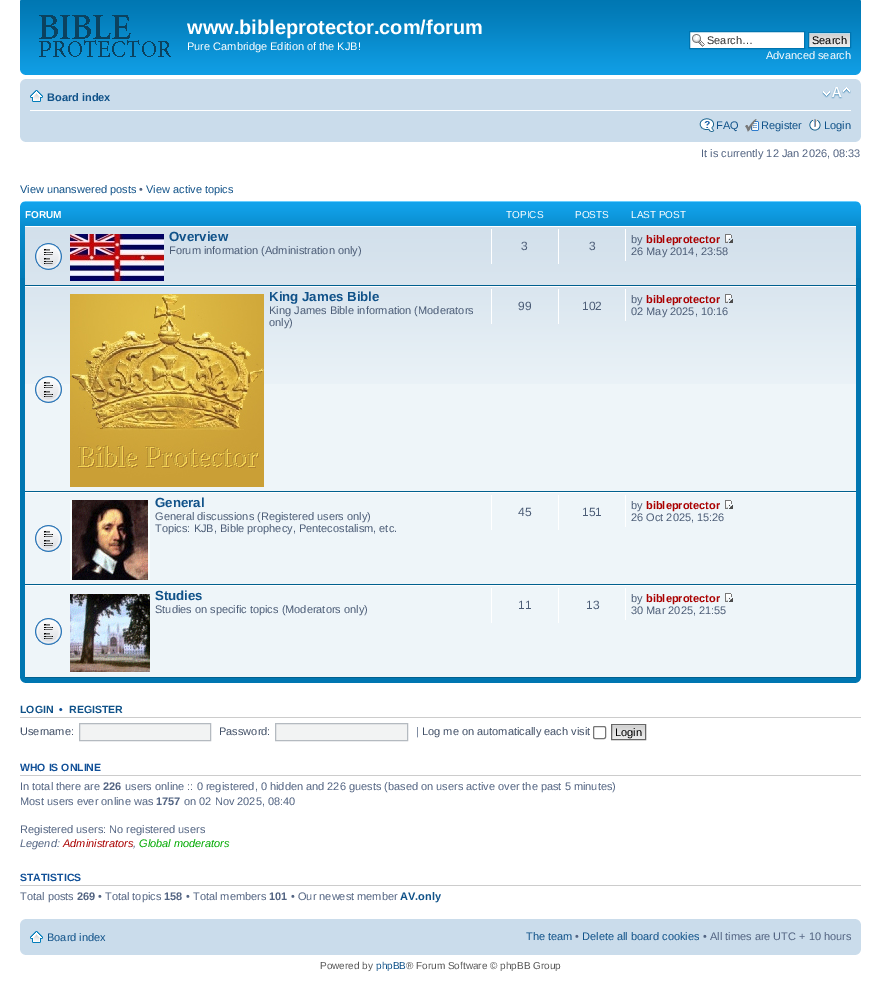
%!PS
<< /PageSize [881 999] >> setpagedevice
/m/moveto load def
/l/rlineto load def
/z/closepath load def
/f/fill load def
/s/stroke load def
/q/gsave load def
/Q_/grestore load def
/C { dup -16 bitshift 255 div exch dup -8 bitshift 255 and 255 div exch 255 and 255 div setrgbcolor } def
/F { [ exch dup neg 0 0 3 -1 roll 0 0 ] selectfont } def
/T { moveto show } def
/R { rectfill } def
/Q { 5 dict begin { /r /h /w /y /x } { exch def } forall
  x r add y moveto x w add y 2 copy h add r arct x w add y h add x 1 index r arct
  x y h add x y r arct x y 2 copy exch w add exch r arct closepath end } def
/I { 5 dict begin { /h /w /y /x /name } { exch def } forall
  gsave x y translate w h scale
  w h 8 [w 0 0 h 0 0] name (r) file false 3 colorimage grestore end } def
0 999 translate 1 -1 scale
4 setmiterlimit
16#FFFFFF C
0 0 881 999 R
(1.rgb) 20 0 841 75 I
16#3D98C4 C
20 0 1 1 R
860 0 1 1 R
(2.rgb) 39 15 132 42 I
/LiberationSans-Bold 20 F
16#FFFFFF C
(www.bibleprotector.com/forum) 187 34 T
/LiberationSans-Regular 11 F
(Pure Cambridge Edition of the KJB!) 187 50 T
690 32 114 16 R
(3.rgb) 692 34 13 13 I
16#0075B0 C
689.5 31.5 115 17 rectstroke
16#333333 C
(Search…) 707 44 T
(4.rgb) 809 33 41 14 I
16#0075B0 C
808.5 32.5 42 15 rectstroke
16#000000 C
(Search) 812 44 T
16#FFFFFF C
(Advanced search) 766 59 T
(5.rgb) 20 70 5 5 I
(6.rgb) 856 70 5 5 I
16#CADCEB C
20 79 841 63 R
(7.rgb) 20 79 5 5 I
(8.rgb) 856 79 5 5 I
16#FFFFFF C
30 110 821 1 R
(9.rgb) 30 90 13 12 I
/LiberationSans-Bold 11 F
16#105289 C
(Board index) 47 101 T
(10.rgb) 822 87 29 12 I
(11.rgb) 699 118 16 14 I
/LiberationSans-Regular 11 F
(FAQ) 716 129 T
(12.rgb) 745 119 14 13 I
(Register) 761 129 T
(13.rgb) 809 119 12 12 I
(Login) 824 129 T
(14.rgb) 20 137 5 5 I
(15.rgb) 856 137 5 5 I
16#536482 C
(It is currently 12 Jan 2026, 08:33) 701 157 T
16#105289 C
(View unanswered posts) 20 193 T
16#536482 C
(•) 139 193 T
16#105289 C
(View active topics) 146 193 T
16#0076B1 C
20 278 841 405 R
(16.rgb) 20 201 841 77 I
(17.rgb) 20 201 5 5 I
(18.rgb) 856 201 5 5 I
/LiberationSans-Bold 10 F
16#FFFFFF C
(FORUM) 25 218 T
/LiberationSans-Regular 10 F
(TOPICS) 506 218 T
(POSTS) 575 218 T
(LAST POST) 631 218 T
16#EEF5F9 C
25 384 831 293 R
(19.rgb) 25 227 831 157 I
16#FFFFFF C
25 226 831 1 R
16#00608F C
25 285 831 1 R
(20.rgb) 35 243 27 27 I
(21.rgb) 70 234 94 47 I
/LiberationSans-Bold 13.25 F
16#105289 C
(Overview) 169 241 T
/LiberationSans-Regular 11 F
16#4C5D77 C
(Forum information \(Administration only\)) 169 254 T
16#FFFFFF C
491 229 1 35 R
/LiberationSans-Regular 12 F
16#4C5D77 C
(3) 521 250 T
16#FFFFFF C
558 229 1 35 R
16#4C5D77 C
(3) 589 250 T
16#FFFFFF C
625 229 1 32 R
/LiberationSans-Regular 11 F
16#4C5D77 C
(by) 631 243 T
/LiberationSans-Bold 11 F
16#AA0000 C
(bibleprotector) 646 243 T
(22.rgb) 725 234 8 9 I
/LiberationSans-Regular 11 F
16#4C5D77 C
(26 May 2014, 23:58) 631 255 T
16#FFFFFF C
25 286 831 1 R
16#00608F C
25 491 831 1 R
(23.rgb) 35 376 27 27 I
(24.rgb) 70 294 194 193 I
/LiberationSans-Bold 13.25 F
16#105289 C
(King James Bible) 269 301 T
/LiberationSans-Regular 11 F
16#4C5D77 C
(King James Bible information \(Moderators) 269 314 T
(only\)) 269 326 T
16#FFFFFF C
491 289 1 35 R
/LiberationSans-Regular 12 F
16#4C5D77 C
(99) 518 310 T
16#FFFFFF C
558 289 1 35 R
16#4C5D77 C
(102) 582 310 T
16#FFFFFF C
625 289 1 32 R
/LiberationSans-Regular 11 F
16#4C5D77 C
(by) 631 303 T
/LiberationSans-Bold 11 F
16#AA0000 C
(bibleprotector) 646 303 T
(25.rgb) 725 294 8 9 I
/LiberationSans-Regular 11 F
16#4C5D77 C
(02 May 2025, 10:16) 631 315 T
16#FFFFFF C
25 492 831 1 R
16#00608F C
25 584 831 1 R
(26.rgb) 35 525 27 27 I
(27.rgb) 70 500 80 80 I
/LiberationSans-Bold 13.25 F
16#105289 C
(General) 155 507 T
/LiberationSans-Regular 11 F
16#4C5D77 C
(General discussions \(Registered users only\)) 155 520 T
(Topics: KJB, Bible prophecy, Pentecostalism, etc.) 155 532 T
16#FFFFFF C
491 495 1 35 R
/LiberationSans-Regular 12 F
16#4C5D77 C
(45) 518 516 T
16#FFFFFF C
558 495 1 35 R
16#4C5D77 C
(151) 582 516 T
16#FFFFFF C
625 495 1 32 R
/LiberationSans-Regular 11 F
16#4C5D77 C
(by) 631 509 T
/LiberationSans-Bold 11 F
16#AA0000 C
(bibleprotector) 646 509 T
(28.rgb) 725 500 8 9 I
/LiberationSans-Regular 11 F
16#4C5D77 C
(26 Oct 2025, 15:26) 631 521 T
16#FFFFFF C
25 585 831 1 R
16#00608F C
25 677 831 1 R
(26.rgb) 35 618 27 27 I
(29.rgb) 70 593 80 80 I
/LiberationSans-Bold 13.25 F
16#105289 C
(Studies) 155 600 T
/LiberationSans-Regular 11 F
16#4C5D77 C
(Studies on specific topics \(Moderators only\)) 155 613 T
16#FFFFFF C
491 588 1 35 R
/LiberationSans-Regular 12 F
16#4C5D77 C
(11) 518 609 T
16#FFFFFF C
558 588 1 35 R
16#4C5D77 C
(13) 586 609 T
16#FFFFFF C
625 588 1 32 R
/LiberationSans-Regular 11 F
16#4C5D77 C
(by) 631 602 T
/LiberationSans-Bold 11 F
16#AA0000 C
(bibleprotector) 646 602 T
(28.rgb) 725 593 8 9 I
/LiberationSans-Regular 11 F
16#4C5D77 C
(30 Mar 2025, 21:55) 631 614 T
(30.rgb) 20 678 5 5 I
(31.rgb) 856 678 5 5 I
16#CCCCCC C
20 717 841 1 R
/LiberationSans-Bold 10.5 F
16#105289 C
(LOGIN) 20 713 T
16#115098 C
(•) 59 713 T
16#105289 C
(REGISTER) 69 713 T
/LiberationSans-Regular 11 F
16#425067 C
(Username:) 20 735 T
16#F2F3F3 C
79.5 723.5 m 131 0 l 0 17 l -131 0 l z q f Q_
16#B4BAC0 C
s
16#425067 C
(Password:) 219 735 T
16#F2F3F3 C
275.5 723.5 m 132 0 l 0 17 l -132 0 l z q f Q_
16#B4BAC0 C
s
16#536482 C
(|) 416 735 T
16#425067 C
(Log me on automatically each visit) 422 735 T
16#767676 C
593.5 726.5 12 12 1.5 Q s
(32.rgb) 612 725 33 14 I
16#666666 C
611.5 724.5 34 15 rectstroke
16#000000 C
(Login) 615 736 T
16#CCCCCC C
20 775 841 1 R
/LiberationSans-Bold 10.5 F
16#115098 C
(WHO IS ONLINE) 20 771 T
/LiberationSans-Regular 11 F
16#536482 C
(In total there are) 20 790 T
/LiberationSans-Bold 11 F
(226) 103 790 T
/LiberationSans-Regular 11 F
(users online :: 0 registered, 0 hidden and 226 guests \(based on users active over the past 5 minutes\)) 125 790 T
(Most users ever online was) 20 805 T
/LiberationSans-Bold 11 F
(1757) 156 805 T
/LiberationSans-Regular 11 F
(on 02 Nov 2025, 08:40) 184 805 T
(Registered users: No registered users) 20 833 T
/LiberationSans-Italic 11 F
(Legend:) 20 847 T
16#AA0000 C
(Administrators) 63 847 T
16#536482 C
(,) 133 847 T
16#00AA00 C
(Global moderators) 139 847 T
16#CCCCCC C
20 885 841 1 R
/LiberationSans-Bold 10.5 F
16#115098 C
(STATISTICS) 20 881 T
/LiberationSans-Regular 11 F
16#536482 C
(Total posts) 20 900 T
/LiberationSans-Bold 11 F
(269) 77 900 T
/LiberationSans-Regular 11 F
(• Total topics) 98 900 T
/LiberationSans-Bold 11 F
(158) 164 900 T
/LiberationSans-Regular 11 F
(• Total members) 186 900 T
/LiberationSans-Bold 11 F
(101) 269 900 T
/LiberationSans-Regular 11 F
(• Our newest member) 291 900 T
/LiberationSans-Bold 11 F
16#105289 C
(AV.only) 400 900 T
16#CADCEB C
20 919 841 36 R
(7.rgb) 20 919 5 5 I
(8.rgb) 856 919 5 5 I
(9.rgb) 30 931 13 12 I
/LiberationSans-Regular 11 F
16#105289 C
(Board index) 47 941 T
(The team) 526 940 T
16#536482 C
(•) 575 940 T
16#105289 C
(Delete all board cookies) 582 940 T
16#536482 C
(• All times are UTC + 10 hours) 703 940 T
(14.rgb) 20 950 5 5 I
(15.rgb) 856 950 5 5 I
/LiberationSans-Regular 10 F
16#555555 C
(Powered by) 320 969 T
16#105289 C
(phpBB) 376 969 T
16#555555 C
(® Forum Software © phpBB Group) 406 969 T
showpage
